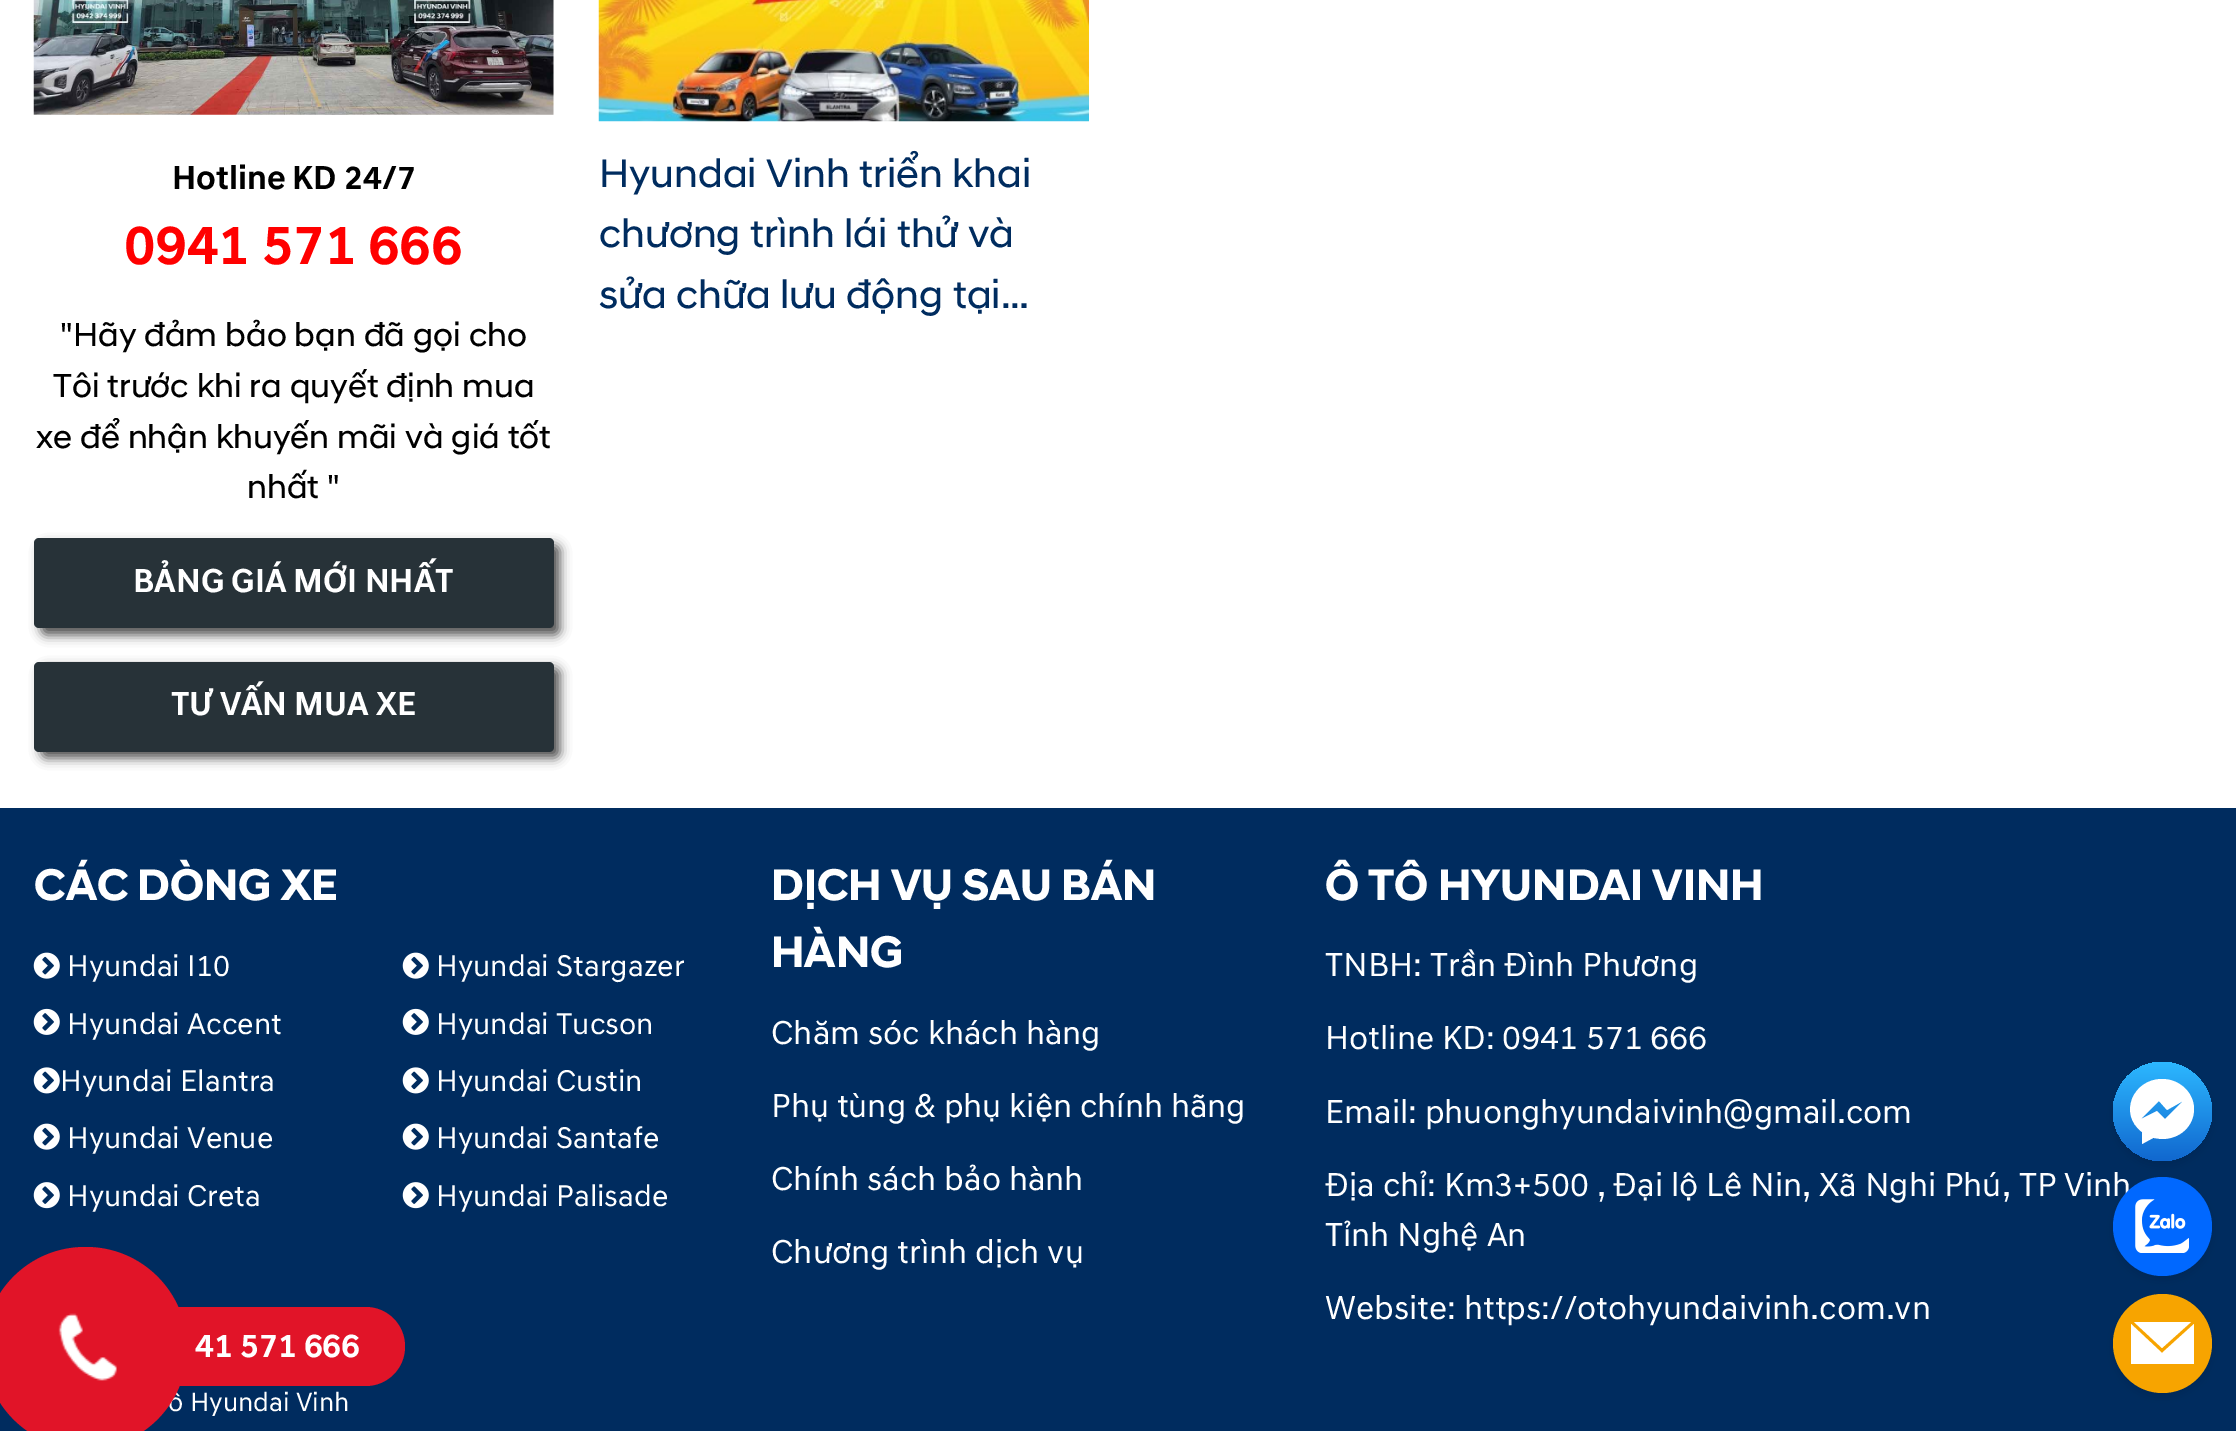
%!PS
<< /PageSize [2236 1431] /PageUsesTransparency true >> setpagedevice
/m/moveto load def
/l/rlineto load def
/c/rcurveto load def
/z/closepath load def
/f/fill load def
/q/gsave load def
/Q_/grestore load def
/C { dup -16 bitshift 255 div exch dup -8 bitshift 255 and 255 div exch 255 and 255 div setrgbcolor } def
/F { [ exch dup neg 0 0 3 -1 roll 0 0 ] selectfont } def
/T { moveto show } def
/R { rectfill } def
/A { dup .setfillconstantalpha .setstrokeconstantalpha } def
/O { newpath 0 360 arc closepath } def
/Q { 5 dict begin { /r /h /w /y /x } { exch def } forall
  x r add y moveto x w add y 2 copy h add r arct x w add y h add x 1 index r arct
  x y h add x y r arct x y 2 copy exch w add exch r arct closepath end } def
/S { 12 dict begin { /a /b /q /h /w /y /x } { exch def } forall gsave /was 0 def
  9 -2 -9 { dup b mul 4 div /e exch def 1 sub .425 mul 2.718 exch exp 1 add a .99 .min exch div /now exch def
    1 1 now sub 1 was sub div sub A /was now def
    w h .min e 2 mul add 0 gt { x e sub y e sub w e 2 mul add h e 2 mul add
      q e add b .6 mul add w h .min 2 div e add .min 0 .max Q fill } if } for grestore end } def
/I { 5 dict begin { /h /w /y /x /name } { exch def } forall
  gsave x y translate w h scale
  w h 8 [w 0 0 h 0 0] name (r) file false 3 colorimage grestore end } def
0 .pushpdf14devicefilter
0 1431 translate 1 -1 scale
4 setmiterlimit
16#FFFFFF C
0 0 2236 1431 R
(1.rgb) 33 0 521 115 I
/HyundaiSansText-Bold 33.75 F
16#000000 C
(Hotline KD 24/7) 172 189 T
/HyundaiSansText-Bold 56.25 F
16#FF0000 C
(0941 571 666) 124 264 T
/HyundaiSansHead-Regular 33.75 F
16#000000 C
("Hãy đảm bảo bạn đã gọi cho) 60 346 T
(Tôi trước khi ra quyết định mua) 53 397 T
(xe để nhận khuyến mãi và giá tốt) 36 448 T
(nhất ") 247 498 T
16#515151 C
41 545 519 90 5 5.5 1 S
16#273238 C
34 538 520 90 5 Q f
/HyundaiSansText-Bold 33.75 F
16#FFFFFF C
(BẢNG GIÁ MỚI NHẤT) 133 592 T
16#515151 C
41 668 519 90 5 5.5 1 S
16#273238 C
34 662 520 90 5 Q f
16#FFFFFF C
(TƯ VẤN MUA XE) 171 715 T
(2.rgb) 598 0 491 122 I
/HyundaiSansHead-Regular 40.5 F
16#002C5F C
(Hyundai Vinh triển khai) 599 187 T
(chương trình lái thử và) 599 247 T
(sửa chữa lưu động tại…) 599 308 T
0 808 2236 623 R
/HyundaiSansHead-Bold 45 F
16#FFFFFF C
(CÁC DÒNG XE) 34 900 T
(3.rgb) 33 952 27 27 I
/HyundaiSansText-Regular 30.5 F
(Hyundai I10) 67 976 T
(4.rgb) 33 1008 27 27 I
(Hyundai Accent) 67 1034 T
(5.rgb) 33 1067 27 27 I
(Hyundai Elantra) 60 1091 T
(3.rgb) 33 1123 27 27 I
(Hyundai Venue) 67 1148 T
(6.rgb) 33 1182 27 27 I
(Hyundai Creta) 67 1206 T
(3.rgb) 402 952 27 27 I
(Hyundai Stargazer) 436 976 T
(4.rgb) 402 1008 27 27 I
(Hyundai Tucson) 436 1034 T
(5.rgb) 402 1067 27 27 I
(Hyundai Custin) 436 1091 T
(3.rgb) 402 1123 27 27 I
(Hyundai Santafe) 436 1148 T
(6.rgb) 402 1182 27 27 I
(Hyundai Palisade) 436 1206 T
/HyundaiSansHead-Bold 45 F
(DỊCH VỤ SAU BÁN) 771 900 T
(HÀNG) 771 967 T
/HyundaiSansText-Regular 33.75 F
(Chăm sóc khách hàng) 771 1044 T
(Phụ tùng & phụ kiện chính hãng) 771 1117 T
(Chính sách bảo hành) 771 1190 T
(Chương trình dịch vụ) 771 1263 T
/HyundaiSansHead-Bold 45 F
(Ô TÔ HYUNDAI VINH) 1325 900 T
/HyundaiSansText-Regular 33.75 F
(TNBH: Trần Đình Phương) 1325 976 T
(Hotline KD: 0941 571 666) 1325 1049 T
(Email: phuonghyundaivinh@gmail.com) 1325 1123 T
(Địa chỉ: Km3+500 , Đại lộ Lê Nin, Xã Nghi Phú, TP Vinh) 1325 1196 T
(Tỉnh Nghệ An) 1325 1246 T
(Website: https://otohyundaivinh.com.vn) 1325 1319 T
/HyundaiSansText-Regular 27 F
(ô Hyundai Vinh) 168 1411 T
16#000000 C
2113 1067 99 99 49.5 5.5 .11 S
16#0084FF C
2162.5 1111.5 49.5 O f
q 2212 1112 m 0 -28 -23 -50 -50 -50 c -27 0 -49 22 -49 50 c 0 27 22 49 49 49 c 27 0 50 -22 50 -49 c z clip newpath
<< /ShadingType 2 /ColorSpace /DeviceRGB /Coords [2161 1160 2161 1063] /Extend [true true] /Function << /FunctionType 2 /Domain [0 1] /C0 [.067 .408 .812] /C1 [.173 .718 1] /N 1 >> >> shfill Q_
16#FFFFFF C
2162 1079 m -29 0 -44 35 -20 53 c 0 12 l 11 -6 l 3 0 6 1 9 1 c 18 0 32 -13 32 -30 c 0 -16 -14 -30 -32 -30 c z 2165 1119 m -8 -8 l -16 8 l 18 -18 l 8 9 l 16 -9 l z eofill
16#000000 C
2113 1181 99 99 49.5 5.5 .11 S
16#0068FF C
2162.5 1226.5 49.5 O f
(7.rgb) 2135 1199 54 54 I
16#000000 C
2113 1298 99 99 49.5 5.5 .11 S
16#F7A400 C
2162.5 1343.5 49.5 O f
16#FFFFFF C
2134 1322 m 57 0 l -29 26 l z 2131 1324 m 31 29 l 32 -29 l 0 40 l -63 0 l z eofill
16#E11428 C
113 1307 m 252.5 0 l 22 0 39.5 17.5 39.5 39.5 c 0 22 -17.5 39.5 -39.5 39.5 c -252.5 0 l z f
-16 1247 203 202 101 Q f
(8.rgb) 58 1313 59 68 I
/HyundaiSansText-Bold 33.75 F
16#FFFFFF C
(41 571 666) 195 1357 T
.poppdf14devicefilter showpage
